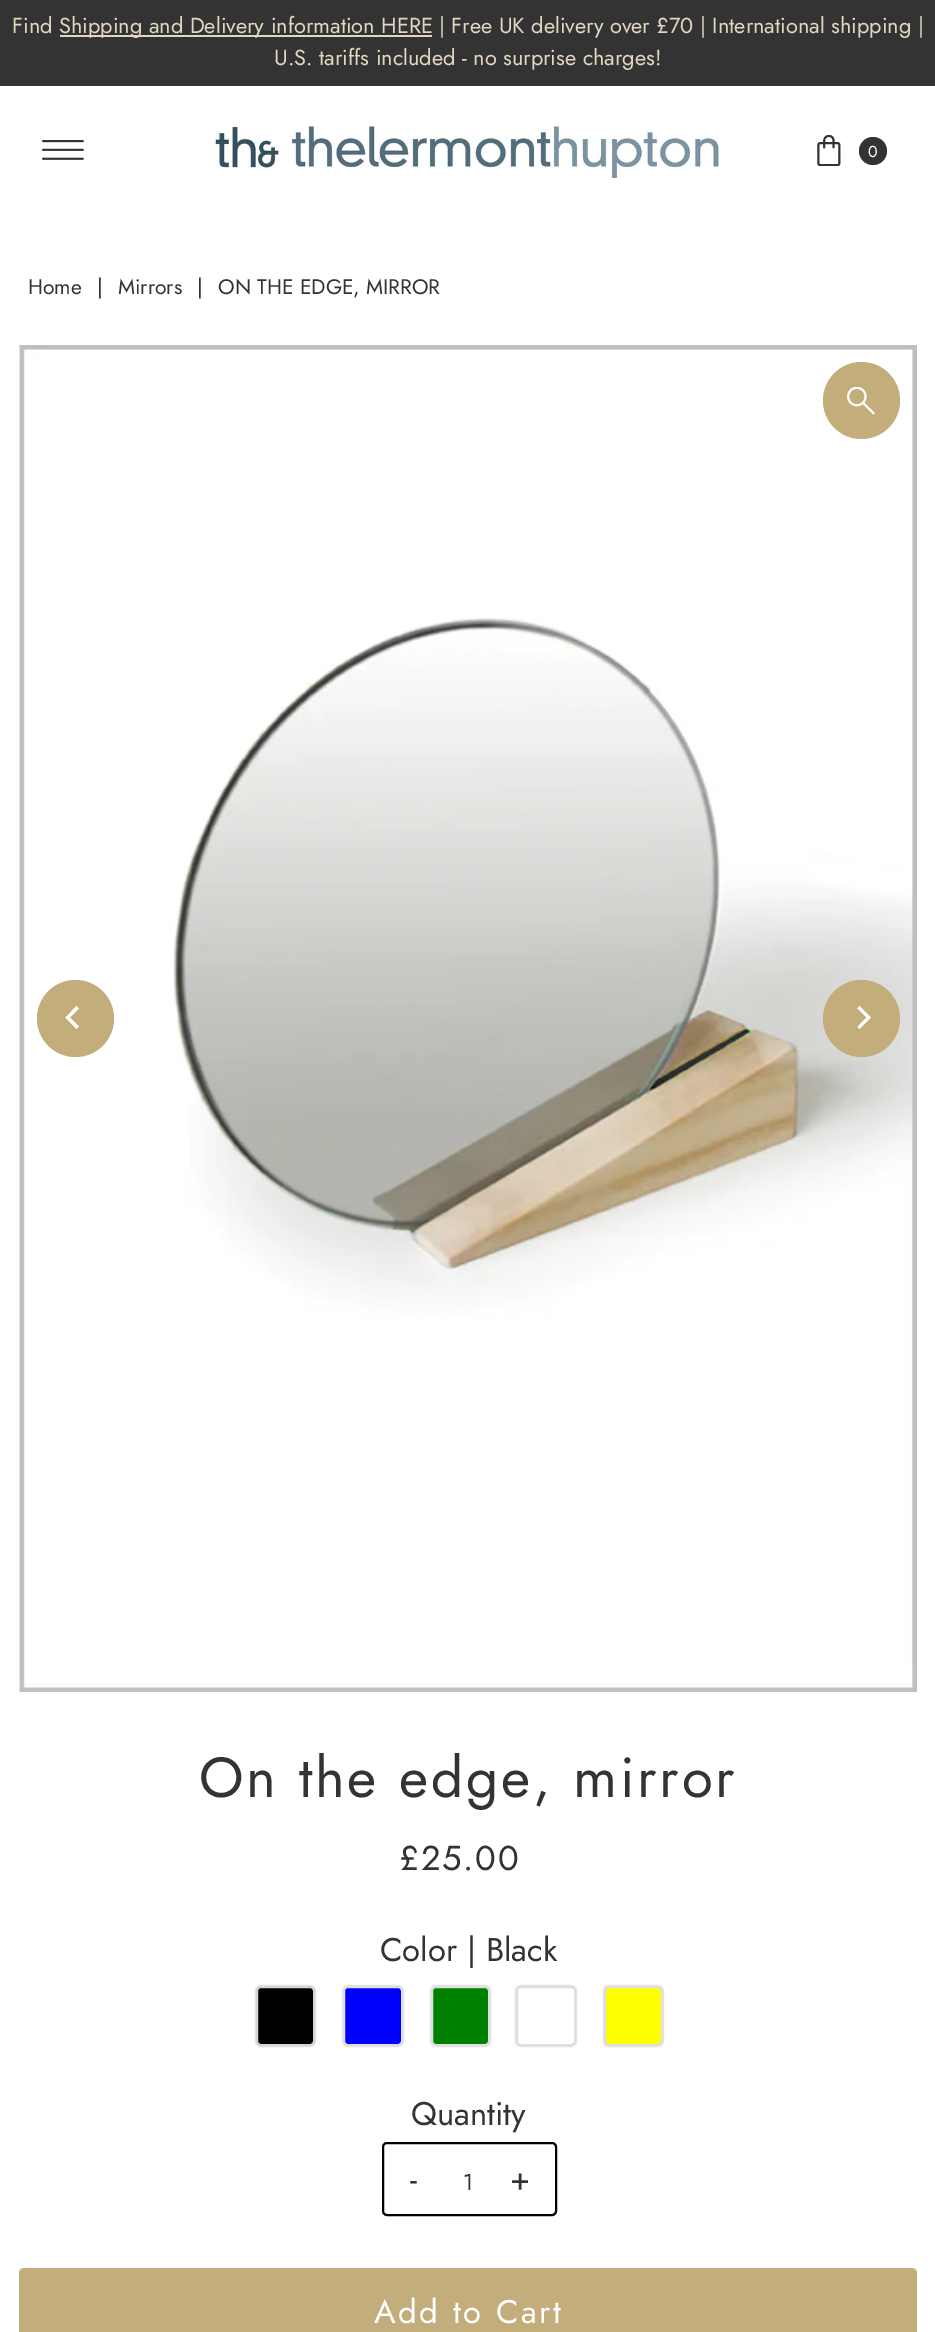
%!PS
<< /PageSize [935 2332] /PageUsesTransparency true >> setpagedevice
/m/moveto load def
/l/rlineto load def
/z/closepath load def
/f/fill load def
/s/stroke load def
/q/gsave load def
/Q_/grestore load def
/w/setlinewidth load def
/C { dup -16 bitshift 255 div exch dup -8 bitshift 255 and 255 div exch 255 and 255 div setrgbcolor } def
/F { [ exch dup neg 0 0 3 -1 roll 0 0 ] selectfont } def
/T { moveto show } def
/R { rectfill } def
/A { dup .setfillconstantalpha .setstrokeconstantalpha } def
/O { newpath 0 360 arc closepath } def
/Q { 5 dict begin { /r /h /w /y /x } { exch def } forall
  x r add y moveto x w add y 2 copy h add r arct x w add y h add x 1 index r arct
  x y h add x y r arct x y 2 copy exch w add exch r arct closepath end } def
/S { 12 dict begin { /a /b /q /h /w /y /x } { exch def } forall gsave /was 0 def
  9 -2 -9 { dup b mul 4 div /e exch def 1 sub .425 mul 2.718 exch exp 1 add a .99 .min exch div /now exch def
    1 1 now sub 1 was sub div sub A /was now def
    w h .min e 2 mul add 0 gt { x e sub y e sub w e 2 mul add h e 2 mul add
      q e add b .6 mul add w h .min 2 div e add .min 0 .max Q fill } if } for grestore end } def
/I { 5 dict begin { /h /w /y /x /name } { exch def } forall
  gsave x y translate w h scale
  w h 8 [w 0 0 h 0 0] name (r) file false 3 colorimage grestore end } def
0 .pushpdf14devicefilter
0 2332 translate 1 -1 scale
4 setmiterlimit
16#FFFFFF C
0 0 935 2332 R
16#333333 C
0 0 935 86 R
/Jost-Regular 21.75 F
16#E2D8C2 C
(Find) 12 33 T
60 35 372 2 R
(Shipping and Delivery information HERE) 59 33 T
(| Free UK delivery over £70 | International shipping |) 439 33 T
(U.S. tariffs included - no surprise charges!) 274 65 T
(1.rgb) 42 140 42 20 I
(2.rgb) 215 126 504 52 I
(3.rgb) 817 135 24 31 I
16#333333 C
873 151 14 O f
/Jost-Regular 16 F
16#FFFFFF C
(0) 868 157 T
/Jost-Regular 21 F
16#333333 C
(Home) 28 294 T
(|) 97 294 T
(Mirrors) 118 294 T
(|) 197 294 T
(ON THE EDGE, MIRROR) 218 294 T
(4.rgb) 19 345 898 1347 I
16#C2AD7B C
861.5 400.5 38.5 O f
(5.rgb) 847 387 28 28 I
75.5 1018.5 38.5 O f
16#FFFFFF C
65.5 1017.5 m 11 11.5 l 2.5 -2.5 l -9 -9 l 9 -9 l -2.5 -2.5 l z f
16#C2AD7B C
861.5 1018.5 38.5 O f
16#FFFFFF C
871 1017.5 m -11.5 -11.5 l -2 2.5 l 9 9 l -9 9 l 2 2.5 l z f
/Jost-Regular 56.5 F
16#333333 C
199 1797 m 2.8 0 (On the edge, mirror) ashow
/Jost-Regular 34.5 F
399 1870 m 1.75 0 (£25.00) ashow
/Jost-Regular 32.75 F
(Color | Black) 380 1961 T
16#AAAAAA C
256 1986 59 60 5 1 1 S
16#000000 C
257 1987 57 58 4 Q q f Q_
16#D5D5D5 C
2 w
s
16#AAAAAA C
343 1986 60 60 5 1 1 S
16#0000FF C
344 1987 58 58 4 Q q f Q_
16#DFDFDF C
s
16#AAAAAA C
431 1986 59 60 5 1 1 S
16#008000 C
432 1987 57 58 4 Q q f Q_
16#DFDFDF C
s
16#AAAAAA C
516 1986 60 60 5 1 1 S
16#FFFFFF C
517 1987 58 58 4 Q q f Q_
16#DFDFDF C
s
16#AAAAAA C
604 1986 59 60 5 1 1 S
16#FFFF00 C
605 1987 57 58 4 Q q f Q_
16#DFDFDF C
s
16#333333 C
(Quantity) 411 2125 T
16#000000 C
383 2143 173 72 4 Q s
16#333333 C
410 2190 m 2.5 0 (-) ashow
/Jost-Regular 23 F
(1) 463 2190 T
/Jost-Regular 32.75 F
510 2190 m 2.5 0 (+) ashow
16#C2AD7B C
19 2268 898 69 5 Q f
16#FFFFFF C
374 2323 m 2.5 0 (Add to Cart) ashow
.poppdf14devicefilter showpage
